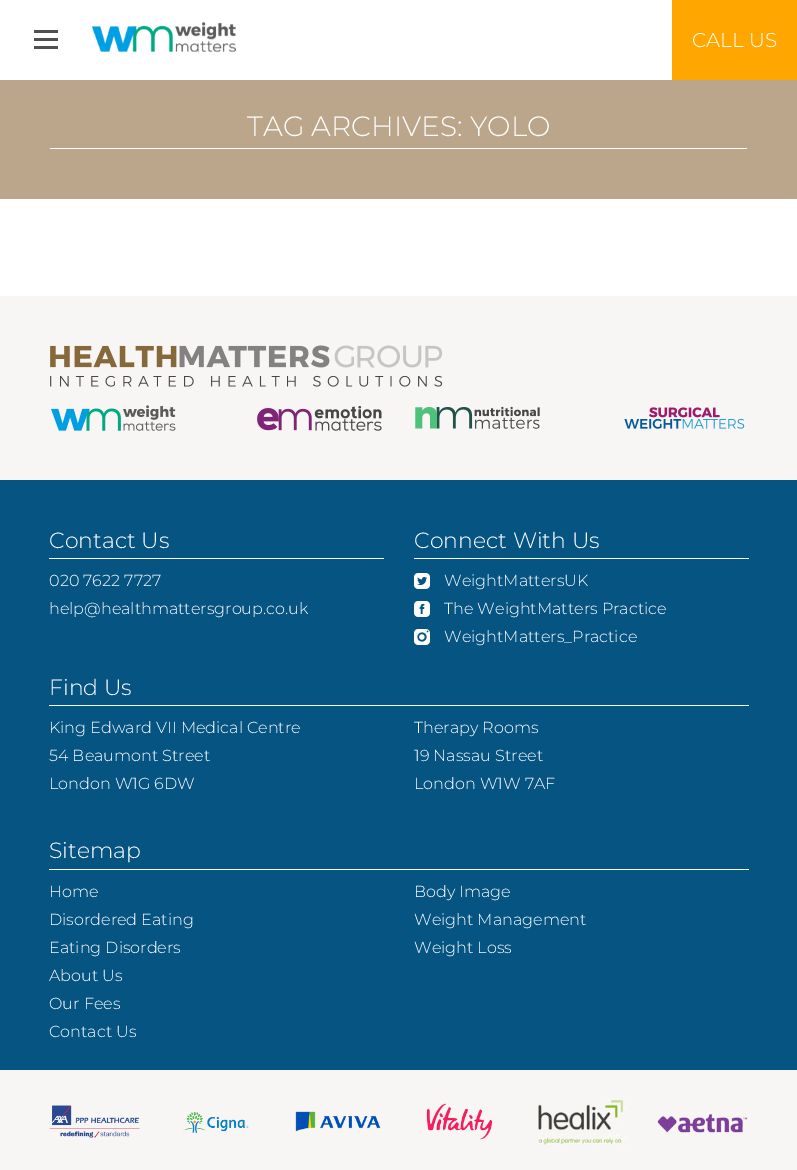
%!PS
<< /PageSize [797 1170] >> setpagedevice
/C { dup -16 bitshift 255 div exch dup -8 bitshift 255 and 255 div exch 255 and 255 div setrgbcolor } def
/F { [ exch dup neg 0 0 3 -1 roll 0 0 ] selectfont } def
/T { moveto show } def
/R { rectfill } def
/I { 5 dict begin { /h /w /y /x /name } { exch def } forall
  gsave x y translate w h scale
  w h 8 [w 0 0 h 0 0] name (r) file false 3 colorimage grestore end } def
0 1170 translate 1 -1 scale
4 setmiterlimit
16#FFFFFF C
0 0 797 1170 R
16#505050 C
34 38 24 3 R
34 30 24 3 R
34 46 24 3 R
(1.rgb) 92 22 144 30 I
16#FFA600 C
672 0 125 80 R
/Montserrat-Light 20 F
16#FFFFFF C
(CALL US) 692 47 T
16#BBA68B C
0 80 797 119 R
16#FFFFFF C
50 148 697 1 R
/Montserrat-Light 28 F
(TAG ARCHIVES: YOLO) 247 136 T
16#F8F6F4 C
0 296 797 874 R
(2.rgb) 50 345 393 42 I
(3.rgb) 51 405 125 26 I
(4.rgb) 257 406 125 25 I
(5.rgb) 415 406 125 23 I
(6.rgb) 624 407 121 22 I
16#055482 C
0 480 797 590 R
16#FFFFFF C
49 558 335 1 R
/Montserrat-Light 22 F
(Contact Us) 49 548 T
/Montserrat-Light 16 F
(020 7622 7727) 49 586 T
(help@healthmattersgroup.co.uk) 49 614 T
414 558 335 1 R
/Montserrat-Light 22 F
(Connect With Us) 414 548 T
(7.rgb) 414 573 16 16 I
/Montserrat-Light 16 F
(WeightMattersUK) 444 586 T
(8.rgb) 414 601 16 16 I
(The WeightMatters Practice) 444 614 T
(9.rgb) 414 629 16 16 I
(WeightMatters_Practice) 444 642 T
49 705 700 1 R
/Montserrat-Light 22 F
(Find Us) 49 695 T
/Montserrat-Light 16 F
(King Edward VII Medical Centre) 49 733 T
(54 Beaumont Street) 49 761 T
(London W1G 6DW) 49 789 T
(Therapy Rooms) 414 733 T
(19 Nassau Street) 414 761 T
(London W1W 7AF) 414 789 T
49 869 700 1 R
/Montserrat-Light 22 F
(Sitemap) 49 858 T
/Montserrat-Light 16 F
(Home) 49 897 T
(Disordered Eating) 49 925 T
(Eating Disorders) 49 953 T
(Body Image) 414 897 T
(Weight Management) 414 925 T
(Weight Loss) 414 953 T
(About Us) 49 981 T
(Our Fees) 49 1009 T
(Contact Us) 49 1037 T
(10.rgb) 49 1105 91 33 I
(11.rgb) 183 1111 66 23 I
(12.rgb) 295 1111 86 21 I
(13.rgb) 426 1103 67 37 I
(14.rgb) 538 1100 89 45 I
(15.rgb) 657 1113 91 20 I
showpage
